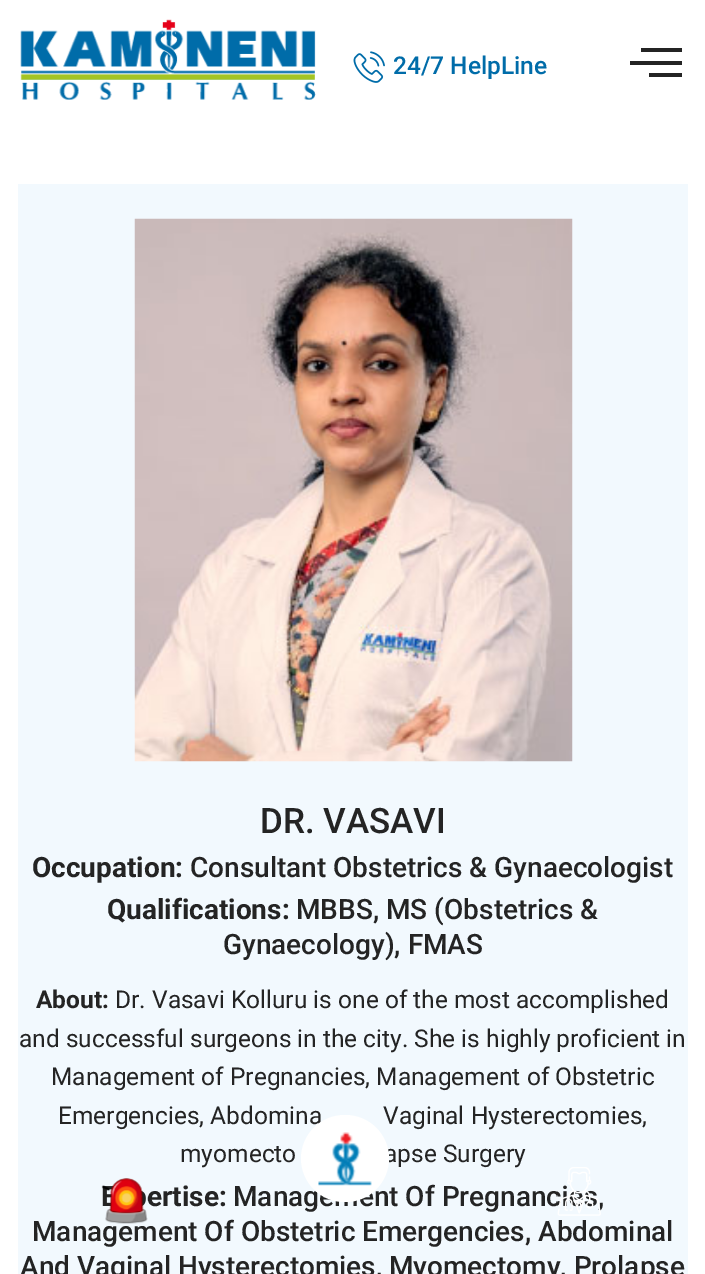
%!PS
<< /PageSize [705 1274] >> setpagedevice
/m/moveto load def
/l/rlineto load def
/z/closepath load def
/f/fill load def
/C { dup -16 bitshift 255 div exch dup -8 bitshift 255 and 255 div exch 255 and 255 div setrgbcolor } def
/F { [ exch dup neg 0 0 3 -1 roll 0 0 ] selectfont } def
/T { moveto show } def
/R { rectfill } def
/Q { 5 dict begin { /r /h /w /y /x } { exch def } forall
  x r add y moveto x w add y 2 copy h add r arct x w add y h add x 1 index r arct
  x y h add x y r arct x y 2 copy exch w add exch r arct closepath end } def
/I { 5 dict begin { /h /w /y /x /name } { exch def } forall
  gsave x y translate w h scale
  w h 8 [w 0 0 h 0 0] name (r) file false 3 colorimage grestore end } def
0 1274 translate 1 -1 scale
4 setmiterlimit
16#FFFFFF C
0 0 705 1274 R
(1.rgb) 20 19 296 81 I
(2.rgb) 353 51 32 32 I
/Roboto-Medium 24.5 F
16#006CA9 C
(24/7 HelpLine) 393 74 T
16#242424 C
630 65 m 52 0 l 0 -4 l -52 0 l z 649 77 m 33 0 l 0 -4 l -33 0 l z 641 48 m 0 4 l 41 0 l 0 -4 l z f
16#F2F9FE C
18 184 670 1090 R
(3.rgb) 134 218 439 544 I
/Roboto-Medium 35 F
16#242424 C
(DR. VASAVI) 260 833 T
/Roboto-Bold 28 F
(Occupation:) 32 877 T
/Roboto-Medium 28 F
(Consultant Obstetrics & Gynaecologist) 190 877 T
/Roboto-Bold 28 F
(Qualifications:) 107 919 T
/Roboto-Medium 28 F
(MBBS, MS \(Obstetrics &) 296 919 T
(Gynaecology\), FMAS) 223 954 T
/Roboto-Bold 24.5 F
(About:) 36 1008 T
/Roboto-Regular 24.5 F
(Dr. Vasavi Kolluru is one of the most accomplished) 115 1008 T
(and successful surgeons in the city. She is highly proficient in) 19 1047 T
(Management of Pregnancies, Management of Obstetric) 51 1085 T
(Emergencies, Abdomina) 58 1124 T
(Vaginal Hysterectomies,) 383 1124 T
(myomecto) 180 1162 T
(apse Surgery) 384 1162 T
/Roboto-Bold 28 F
(E) 101 1206 T
(ertise:) 147 1206 T
/Roboto-Medium 28 F
(Management Of Pregnancies,) 233 1206 T
(Management Of Obstetric Emergencies, Abdominal) 32 1241 T
(And Vaginal Hysterectomies, Myomectomy, Prolapse) 20 1276 T
(4.rgb) 101 1178 47 46 I
16#FFFFFF C
301 1115 88 87 43.5 Q f
(5.rgb) 318 1132 54 54 I
(6.rgb) 557 1167 44 49 I
showpage
